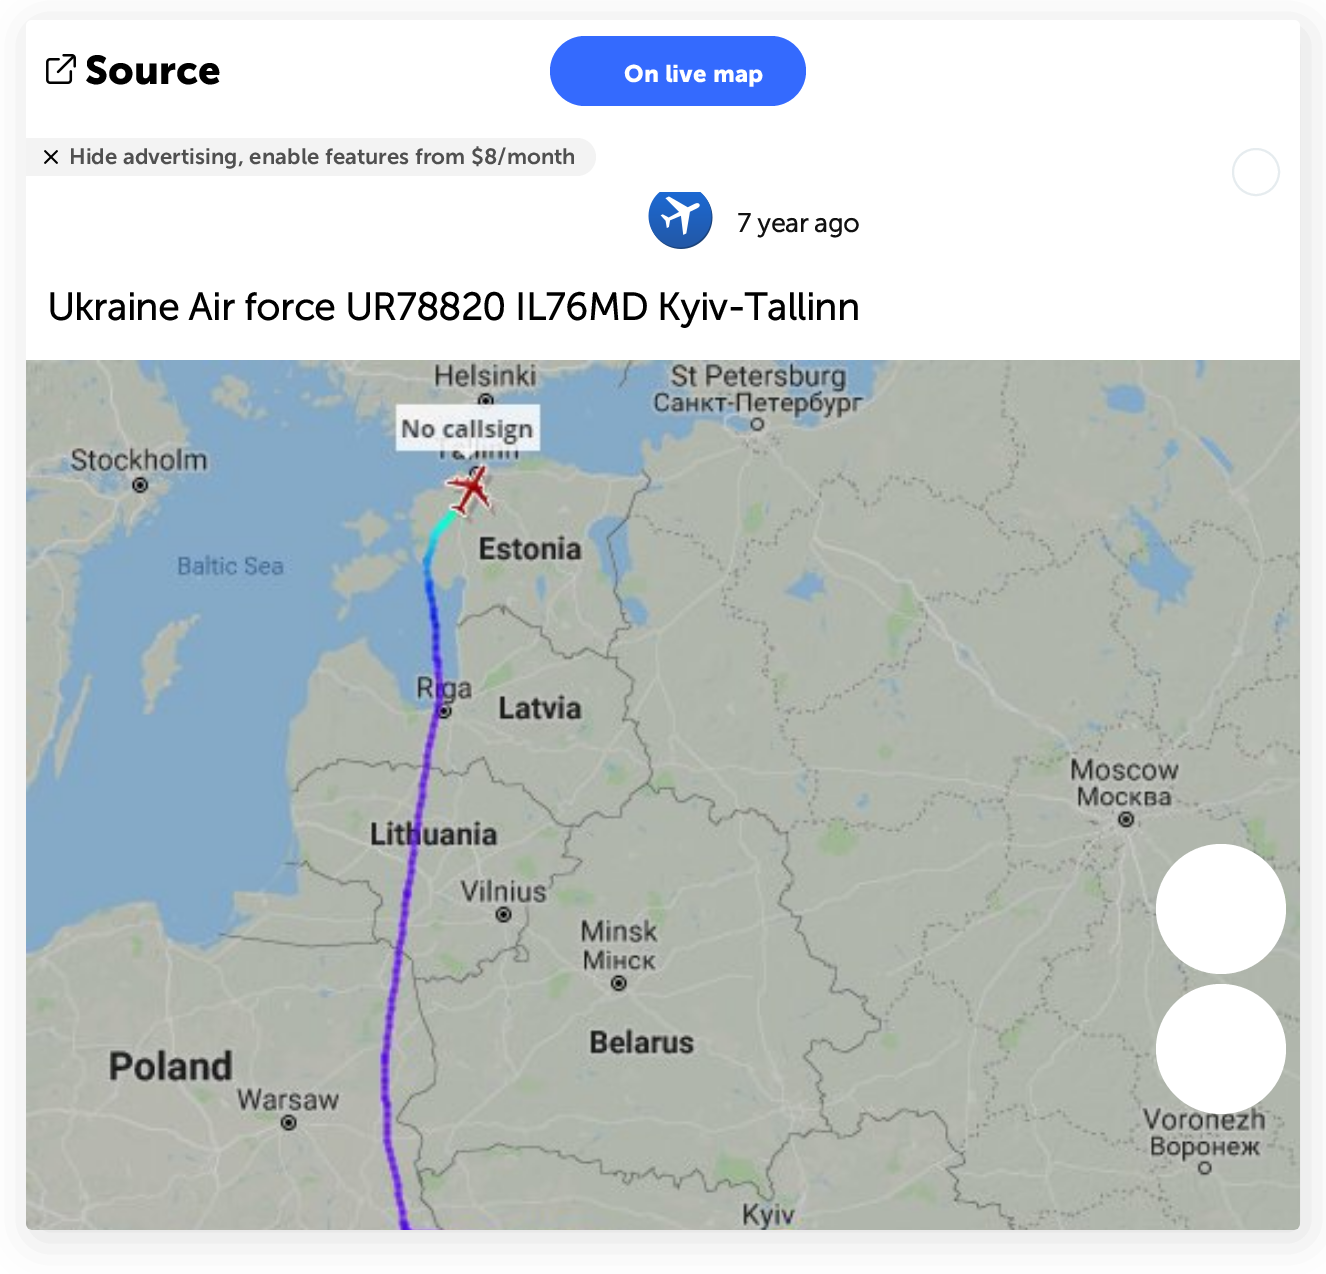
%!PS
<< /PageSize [1326 1274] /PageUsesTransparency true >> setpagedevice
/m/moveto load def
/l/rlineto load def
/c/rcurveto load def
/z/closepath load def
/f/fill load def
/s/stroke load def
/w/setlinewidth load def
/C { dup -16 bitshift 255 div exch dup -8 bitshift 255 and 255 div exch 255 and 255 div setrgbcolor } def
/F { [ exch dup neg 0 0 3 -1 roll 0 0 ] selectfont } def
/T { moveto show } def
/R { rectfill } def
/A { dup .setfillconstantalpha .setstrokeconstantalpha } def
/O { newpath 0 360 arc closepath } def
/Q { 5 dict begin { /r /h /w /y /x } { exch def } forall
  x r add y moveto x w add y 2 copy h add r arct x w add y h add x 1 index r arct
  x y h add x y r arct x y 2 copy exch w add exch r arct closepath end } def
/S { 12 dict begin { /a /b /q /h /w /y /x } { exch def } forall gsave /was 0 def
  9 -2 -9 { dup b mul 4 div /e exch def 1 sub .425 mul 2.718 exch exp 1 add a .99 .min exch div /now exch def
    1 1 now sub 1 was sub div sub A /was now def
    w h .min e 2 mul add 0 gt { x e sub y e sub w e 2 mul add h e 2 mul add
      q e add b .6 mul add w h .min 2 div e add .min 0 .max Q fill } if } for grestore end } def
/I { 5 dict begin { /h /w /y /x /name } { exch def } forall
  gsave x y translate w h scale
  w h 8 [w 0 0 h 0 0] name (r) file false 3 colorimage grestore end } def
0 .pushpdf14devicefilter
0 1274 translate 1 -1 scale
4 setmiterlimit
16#FFFFFF C
0 0 1326 1274 R
16#100F0F C
32 28 1274 1210 6 22 .14 S
16#FFFFFF C
26 20 1274 1210 6 Q f
(1.rgb) 46 54 30 30 I
/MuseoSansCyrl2-Bold 40 F
16#000000 C
(Source) 85 84 T
16#346AFE C
550 36 256 70 35 Q f
/MuseoSansCyrl2-Bold 24 F
16#FFFFFF C
(On live map) 624 82 T
16#E6ECEF C
2 w
1256 172 23 O s
16#F3F3F3 C
26 138 m 551 0 l 10.5 0 19 8.5 19 19 c 0 10.5 -8.5 19 -19 19 c -551 0 l z f
(2.rgb) 44 150 14 14 I
/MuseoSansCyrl-SemiBold 22 F
16#505050 C
(Hide advertising, enable features from $8/month) 69 164 T
(3.rgb) 648 192 65 57 I
/MuseoSansCyrl-Bold 26 F
16#111111 C
(7 year ago) 737 232 T
/MuseoSansCyrl-Bold 38 F
16#000000 C
(Ukraine Air force UR78820 IL76MD Kyiv-Tallinn) 47 320 T
(4.rgb) 26 360 1274 870 I
16#FFFFFF C
1221 909 65 O f
1221 1114 m -36 0 -65 -29 -65 -65 c 0 -36 29 -65 65 -65 c 36 0 65 29 65 65 c 0 36 -29 65 -65 65 c z f
.poppdf14devicefilter showpage
